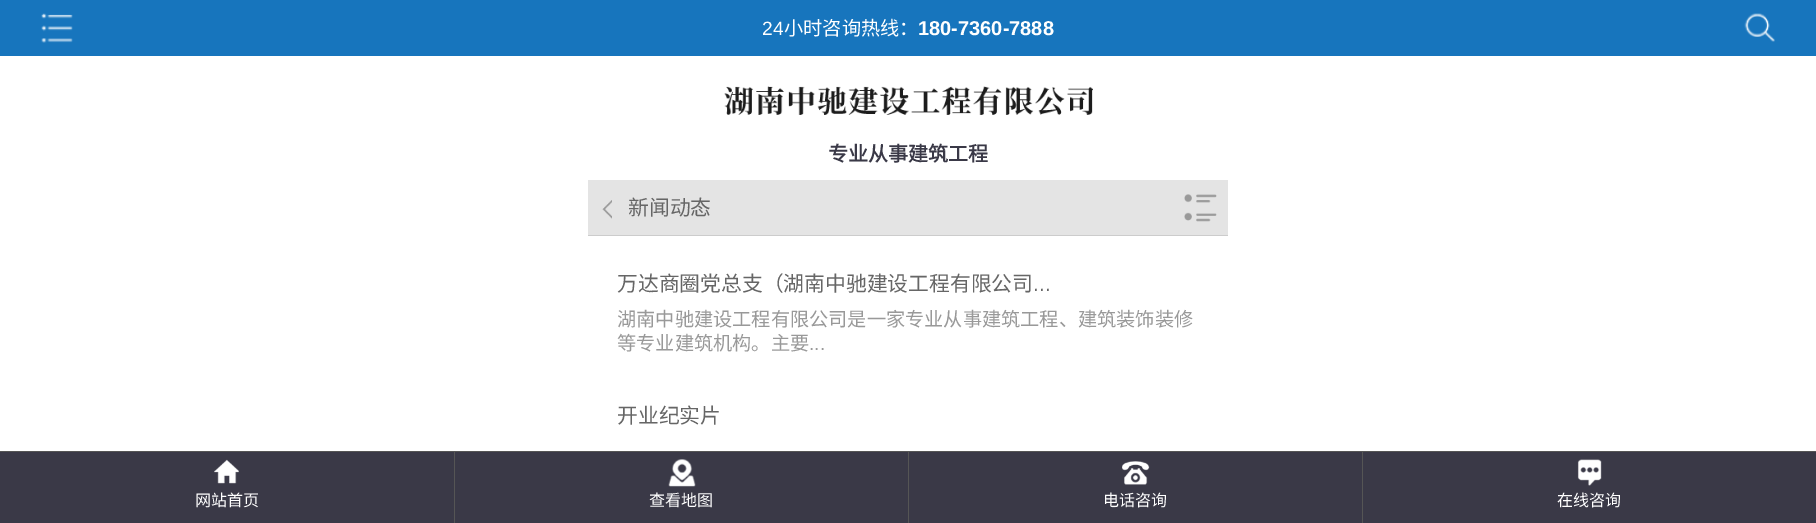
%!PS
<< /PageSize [1816 523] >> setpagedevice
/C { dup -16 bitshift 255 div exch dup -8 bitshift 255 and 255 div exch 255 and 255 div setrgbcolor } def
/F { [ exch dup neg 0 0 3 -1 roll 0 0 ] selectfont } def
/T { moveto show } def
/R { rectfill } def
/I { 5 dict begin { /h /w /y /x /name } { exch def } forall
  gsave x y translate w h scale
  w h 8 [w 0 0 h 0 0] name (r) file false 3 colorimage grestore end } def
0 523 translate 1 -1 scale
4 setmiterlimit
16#FFFFFF C
0 0 1816 523 R
16#1775BD C
0 0 1816 56 R
(1.rgb) 41 13 32 30 I
/LiberationSans-Regular 19.2 F
16#FFFFFF C
(24) 762 35 T
/NotoSansCJKSC-Regular 19.2 F
(小时咨询热线：) 784 35 T
/LiberationSans-Bold 20 F
(180-7360-7888) 918 35 T
(2.rgb) 1744 13 31 29 I
(3.rgb) 724 86 369 29 I
/NotoSansCJKSC-Bold 20 F
16#3A3947 C
(专业从事建筑工程) 828 161 T
16#E4E4E4 C
588 180 640 55 R
16#CCCCCC C
588 235 640 1 R
(4.rgb) 602 200 10 19 I
/NotoSansCJKSC-Regular 20.8 F
16#666666 C
(新闻动态) 628 215 T
(5.rgb) 1184 194 33 28 I
(万达商圈党总支（湖南中驰建设工程有限公司) 617 291 T
/LiberationSans-Regular 20.8 F
(...) 1033 291 T
/NotoSansCJKSC-Regular 19.2 F
16#999999 C
(湖南中驰建设工程有限公司是一家专业从事建筑工程、建筑装饰装修) 617 326 T
(等专业建筑机构。主要) 617 350 T
/LiberationSans-Regular 19.2 F
(...) 809 350 T
/NotoSansCJKSC-Regular 20.8 F
16#666666 C
(开业纪实片) 617 423 T
16#3A3947 C
0 452 1816 71 R
16#555555 C
0 451 1816 1 R
(6.rgb) 214 459 25 25 I
/NotoSansCJKSC-Regular 16 F
16#FFFFFF C
(网站首页) 195 506 T
16#555555 C
454 452 1 71 R
(7.rgb) 668 459 28 28 I
16#FFFFFF C
(查看地图) 649 506 T
16#555555 C
908 452 1 71 R
(8.rgb) 1122 461 28 24 I
16#FFFFFF C
(电话咨询) 1103 506 T
16#555555 C
1362 452 1 71 R
(9.rgb) 1577 459 25 27 I
16#FFFFFF C
(在线咨询) 1557 506 T
showpage
